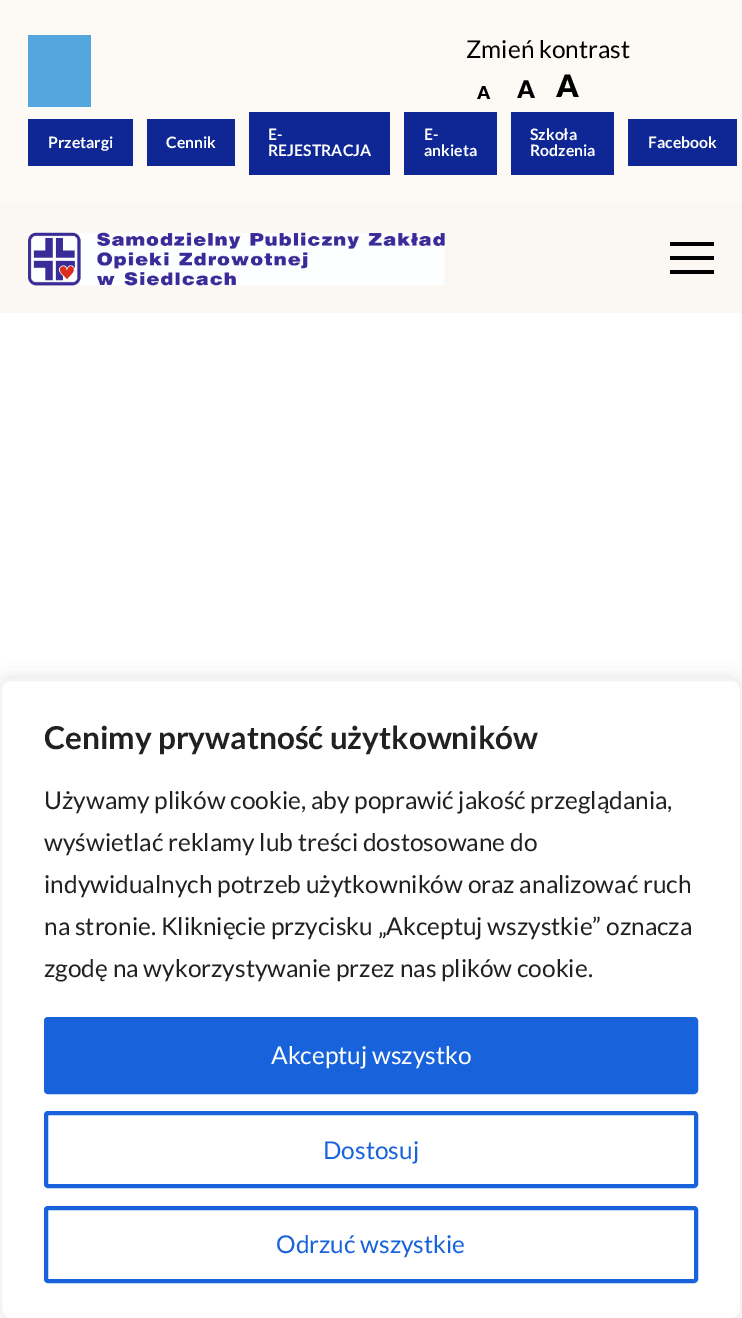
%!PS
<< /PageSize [742 1318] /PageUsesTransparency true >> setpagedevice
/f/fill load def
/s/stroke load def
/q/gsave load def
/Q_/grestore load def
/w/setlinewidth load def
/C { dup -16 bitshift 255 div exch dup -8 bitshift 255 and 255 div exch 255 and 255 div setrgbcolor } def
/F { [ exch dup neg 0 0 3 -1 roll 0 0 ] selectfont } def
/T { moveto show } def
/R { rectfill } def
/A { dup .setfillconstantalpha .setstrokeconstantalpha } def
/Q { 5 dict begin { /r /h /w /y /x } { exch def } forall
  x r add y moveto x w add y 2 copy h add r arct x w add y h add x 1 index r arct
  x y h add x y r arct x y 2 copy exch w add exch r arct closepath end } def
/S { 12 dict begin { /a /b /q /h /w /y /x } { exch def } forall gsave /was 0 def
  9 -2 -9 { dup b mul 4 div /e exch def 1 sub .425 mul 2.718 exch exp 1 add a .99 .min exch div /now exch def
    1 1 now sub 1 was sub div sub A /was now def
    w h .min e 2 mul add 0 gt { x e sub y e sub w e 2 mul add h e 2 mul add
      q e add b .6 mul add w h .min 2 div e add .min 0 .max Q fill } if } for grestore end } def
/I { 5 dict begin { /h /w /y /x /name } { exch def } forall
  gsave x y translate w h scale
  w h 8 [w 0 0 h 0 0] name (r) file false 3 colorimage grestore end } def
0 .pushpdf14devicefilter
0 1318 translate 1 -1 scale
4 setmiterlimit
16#FFFFFF C
0 0 742 1318 R
16#FDFAF6 C
0 0 742 203 R
16#54A6DF C
28 35 63 72 R
/Lato-Regular 24.5 F
16#000000 C
(Zmień kontrast) 466 58 T
/Lato-Black 18 F
(A) 477 99 T
/Lato-Black 24.5 F
(A) 517 98 T
/Lato-Black 31 F
(A) 556 97 T
16#0E2794 C
28 119 105 47 R
/Lato-Bold 15.75 F
16#FFFFFF C
(Przetargi) 48 148 T
16#0E2794 C
147 119 88 47 R
16#FFFFFF C
(Cennik) 166 148 T
16#0E2794 C
249 112 141 63 R
16#FFFFFF C
(E-) 268 140 T
(REJESTRACJA) 268 156 T
16#0E2794 C
404 112 93 63 R
16#FFFFFF C
(E-) 424 140 T
(ankieta) 424 156 T
16#0E2794 C
511 112 103 63 R
16#FFFFFF C
(Szkoła) 530 140 T
(Rodzenia) 530 156 T
16#0E2794 C
628 119 109 47 R
16#FFFFFF C
(Facebook) 648 148 T
16#FBF7F2 C
0 203 742 110 R
(1.rgb) 28 232 417 54 I
16#000000 C
670 242 44 4 R
670 256 44 4 R
670 270 44 4 R
16#ACABAB C
0 677 742 641 11 9 .3 S
16#FFFFFF C
1 680 740 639 10 Q q f Q_
16#F4F4F4 C
2 w
s
/Lato-Bold 31.5 F
16#212121 C
(Cenimy prywatność użytkowników) 44 749 T
/Lato-Regular 24.5 F
(Używamy plików cookie, aby poprawić jakość przeglądania,) 44 809 T
(wyświetlać reklamy lub treści dostosowane do) 44 851 T
(indywidualnych potrzeb użytkowników oraz analizować ruch) 44 893 T
(na stronie. Kliknięcie przycisku „Akceptuj wszystkie” oznacza) 44 935 T
(zgodę na wykorzystywanie przez nas plików cookie.) 44 977 T
16#1863DC C
46 1019 650 73 2 Q q f Q_
4 w
s
16#FFFFFF C
(Akceptuj wszystko) 271 1064 T
16#1863DC C
46 1113 650 73 2 Q s
(Dostosuj) 323 1159 T
46 1208 650 73 2 Q s
(Odrzuć wszystkie) 276 1253 T
.poppdf14devicefilter showpage
